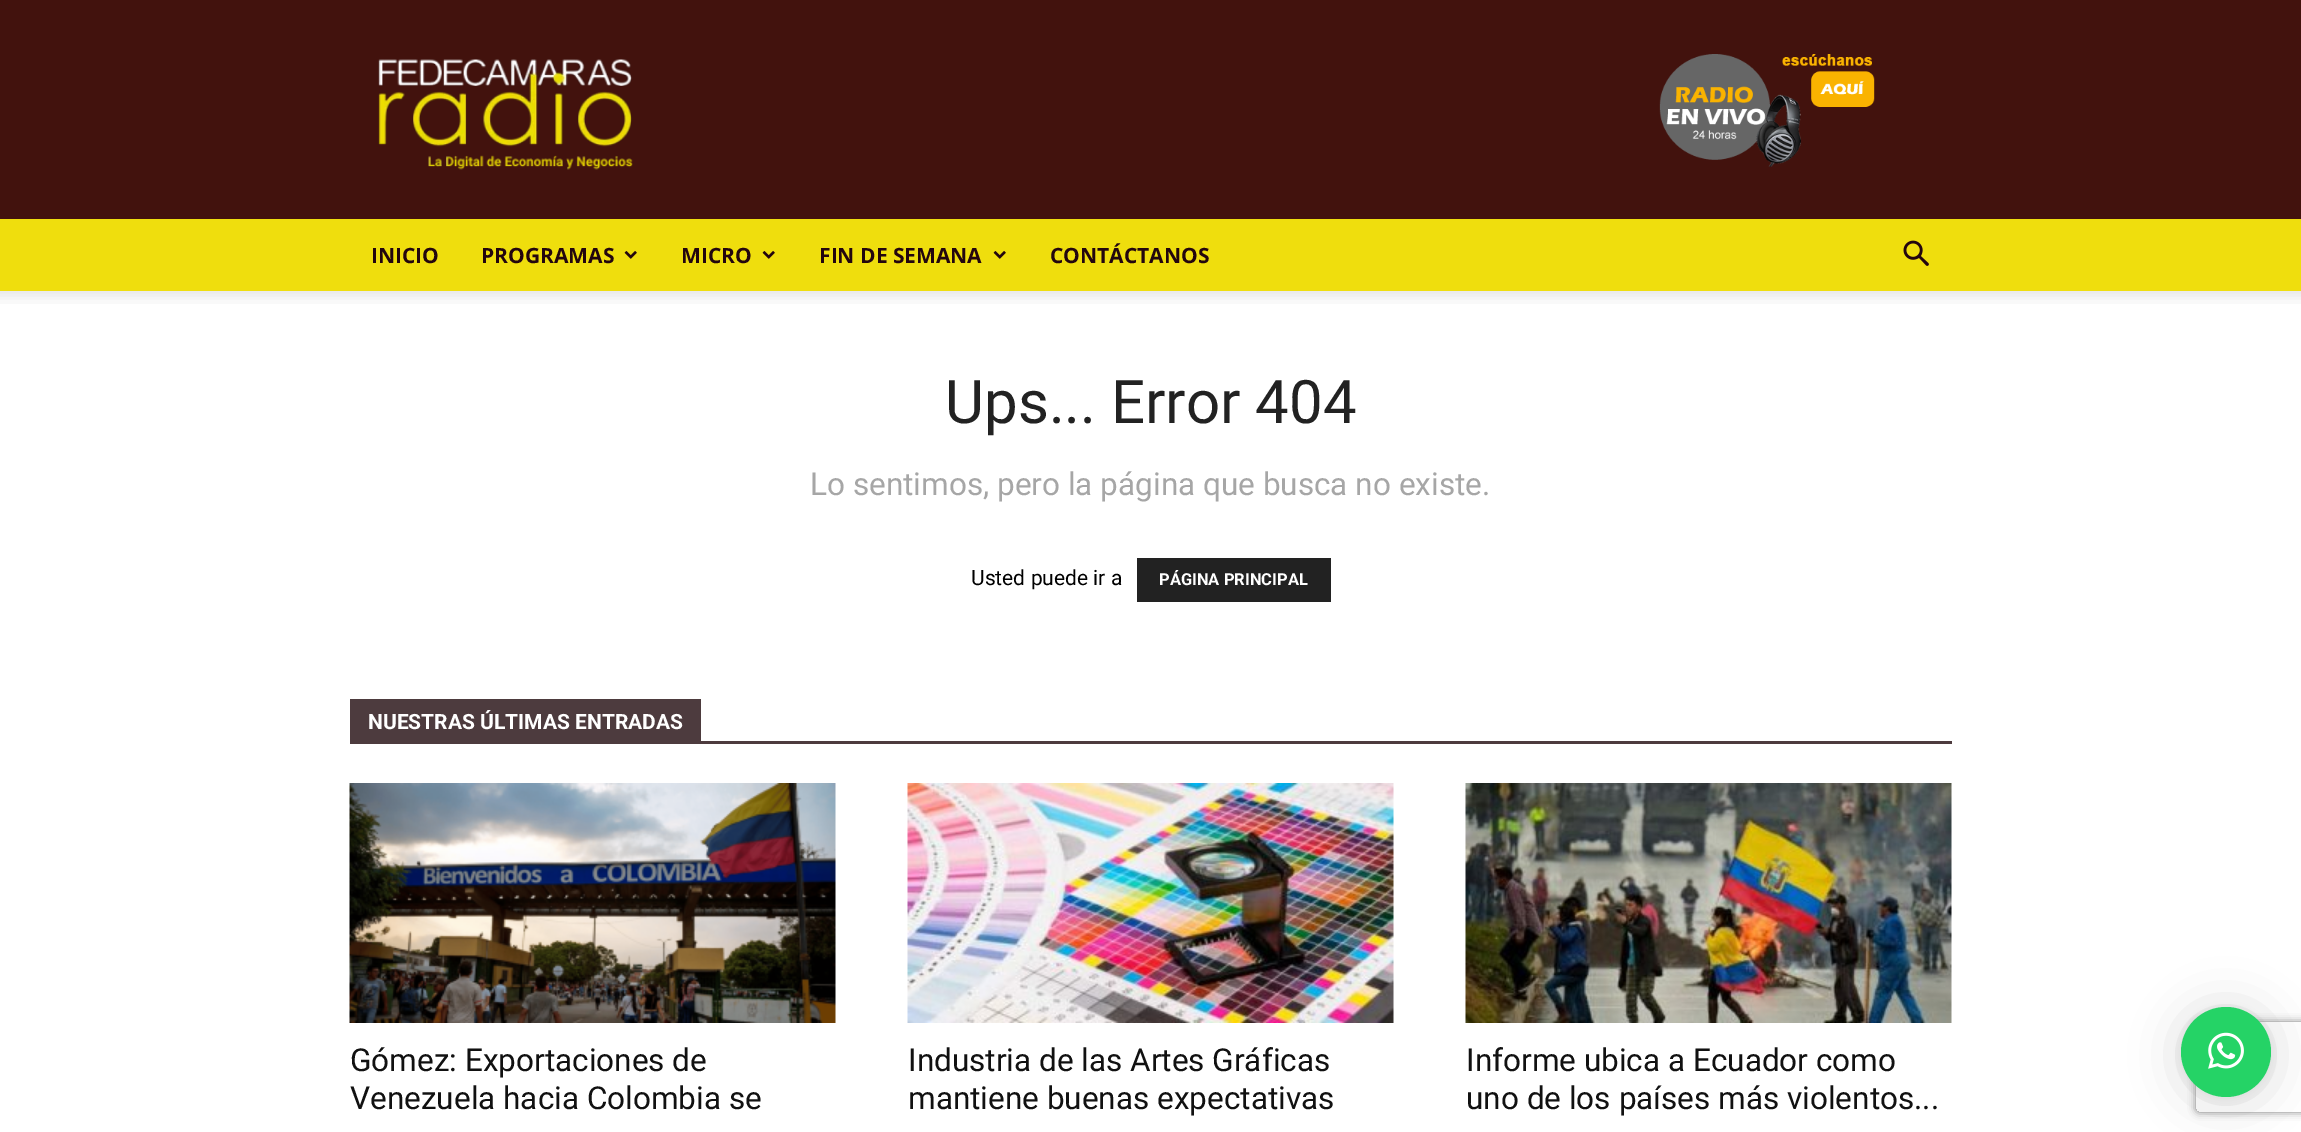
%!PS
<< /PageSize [2301 1132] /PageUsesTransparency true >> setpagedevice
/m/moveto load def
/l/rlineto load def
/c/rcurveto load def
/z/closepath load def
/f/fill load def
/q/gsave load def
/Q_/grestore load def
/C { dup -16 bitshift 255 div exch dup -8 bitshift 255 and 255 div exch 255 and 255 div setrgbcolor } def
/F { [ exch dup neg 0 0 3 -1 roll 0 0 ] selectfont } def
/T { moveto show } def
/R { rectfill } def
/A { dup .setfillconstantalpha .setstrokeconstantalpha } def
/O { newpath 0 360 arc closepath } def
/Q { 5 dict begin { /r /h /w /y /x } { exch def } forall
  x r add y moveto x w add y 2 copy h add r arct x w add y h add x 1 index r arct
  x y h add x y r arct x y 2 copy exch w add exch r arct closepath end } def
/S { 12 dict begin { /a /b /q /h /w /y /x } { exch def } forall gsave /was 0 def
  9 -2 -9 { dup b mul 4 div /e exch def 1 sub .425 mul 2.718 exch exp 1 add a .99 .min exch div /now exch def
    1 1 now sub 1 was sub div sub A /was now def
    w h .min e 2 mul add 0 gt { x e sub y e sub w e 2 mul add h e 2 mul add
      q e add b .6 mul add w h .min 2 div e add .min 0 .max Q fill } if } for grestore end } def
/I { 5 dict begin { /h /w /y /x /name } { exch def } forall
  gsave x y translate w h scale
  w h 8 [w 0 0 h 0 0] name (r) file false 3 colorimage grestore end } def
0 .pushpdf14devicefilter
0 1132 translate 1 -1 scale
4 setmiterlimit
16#FFFFFF C
0 0 2301 1132 R
16#42120D C
0 0 2301 219 R
(1.rgb) 378 59 255 111 I
(2.rgb) 1659 54 216 113 I
16#EFDE0D C
0 219 2301 72 R
/OpenSans-Bold 21 F
16#23060E C
(INICIO) 371 263 T
(PROGRAMAS) 481 263 T
(3.rgb) 624 251 13 8 I
(MICRO) 681 263 T
(3.rgb) 762 251 13 8 I
(FIN DE SEMANA) 819 263 T
(3.rgb) 993 251 13 8 I
(CONTÁCTANOS) 1050 263 T
(4.rgb) 1903 240 26 26 I
(5.rgb) 0 291 2301 13 I
/Roboto-Regular 60 F
16#222222 C
(Ups... Error 404) 945 423 T
/Roboto-Regular 31.5 F
16#A6A6A6 C
(Lo sentimos, pero la página que busca no existe.) 810 495 T
/Roboto-Regular 21 F
16#000000 C
(Usted puede ir a) 971 585 T
16#222222 C
1137 558 194 44 R
/Roboto-Bold 16.5 F
16#FFFFFF C
(PÁGINA PRINCIPAL) 1159 585 T
16#4D3B3E C
350 741 1602 3 R
350 699 351 42 R
/Roboto-Bold 21 F
16#FFFFFF C
(NUESTRAS ÚLTIMAS ENTRADAS) 368 729 T
(6.rgb) 349 783 487 240 I
/Roboto-Regular 31.5 F
16#111111 C
(Gómez: Exportaciones de) 350 1071 T
(Venezuela hacia Colombia se) 350 1109 T
(7.rgb) 907 783 487 240 I
(Industria de las Artes Gráficas) 908 1071 T
(mantiene buenas expectativas) 908 1109 T
(8.rgb) 1465 783 487 240 I
(Informe ubica a Ecuador como) 1466 1071 T
(uno de los países más violentos...) 1466 1109 T
16#000000 C
2181 1010 90 90 45 24 .16 S
2181 1008 90 90 45 4.5 .06 S
q
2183 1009 m 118 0 l 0 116 l -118 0 l z 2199 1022 m 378 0 l 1.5 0 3 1.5 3 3 c 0 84 l 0 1.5 -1.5 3 -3 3 c -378 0 l -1.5 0 -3 -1.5 -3 -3 c 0 -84 l 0 -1.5 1.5 -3 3 -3 c z eoclip newpath
16#808080 C
2196 1022 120 90 3 4 1 S
Q_
16#25D366 C
2226 1052 45 O f
(9.rgb) 2208 1032 36 37 I
.poppdf14devicefilter showpage
